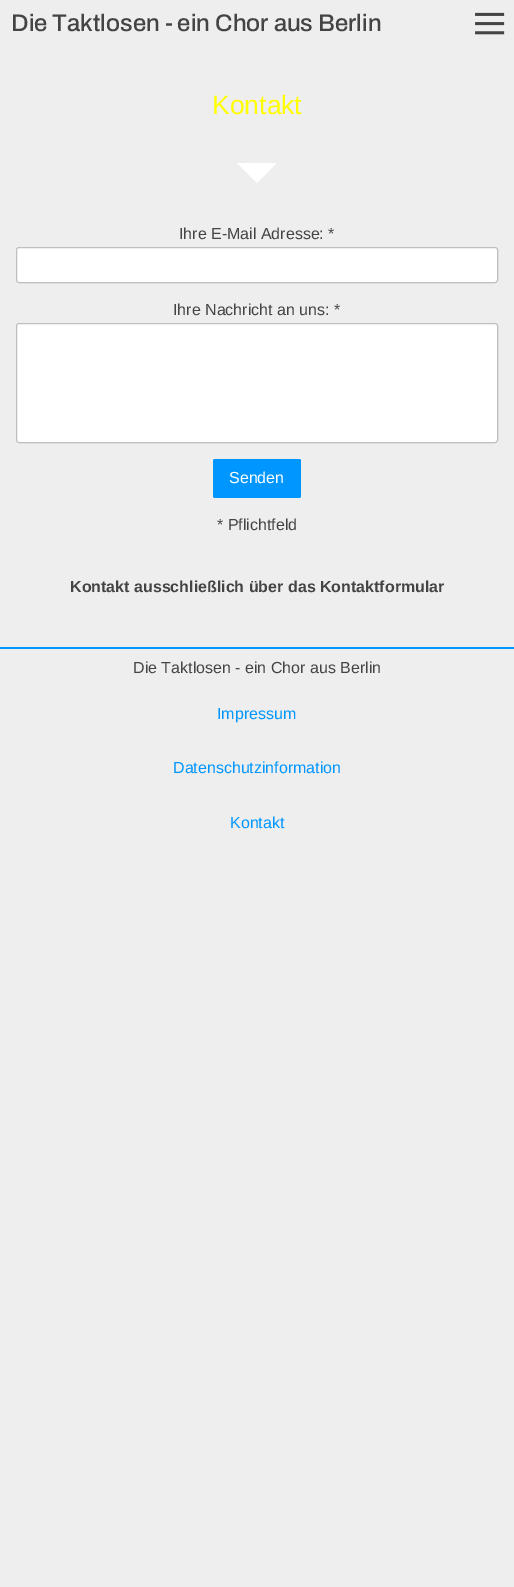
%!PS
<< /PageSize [514 1587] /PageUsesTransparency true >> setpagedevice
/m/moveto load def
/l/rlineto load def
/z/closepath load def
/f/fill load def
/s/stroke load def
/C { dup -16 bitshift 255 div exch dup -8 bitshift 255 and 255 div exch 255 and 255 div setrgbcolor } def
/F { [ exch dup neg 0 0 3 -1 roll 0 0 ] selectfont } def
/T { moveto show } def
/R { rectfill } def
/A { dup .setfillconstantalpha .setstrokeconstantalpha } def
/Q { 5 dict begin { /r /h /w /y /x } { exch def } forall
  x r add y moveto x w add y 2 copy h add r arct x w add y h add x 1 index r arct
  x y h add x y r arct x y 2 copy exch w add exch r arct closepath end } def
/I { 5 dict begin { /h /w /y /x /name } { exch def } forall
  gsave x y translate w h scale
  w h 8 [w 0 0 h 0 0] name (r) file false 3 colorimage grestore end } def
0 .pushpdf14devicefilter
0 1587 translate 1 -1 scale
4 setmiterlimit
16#EEEEEE C
0 0 514 1587 R
/Archivo-Medium 24 F
16#444444 C
(Die Taktlosen - ein Chor aus Berlin) 11 31 T
(1.rgb) 475 12 30 23 I
/LiberationSans-Regular 26.5 F
16#FFFF00 C
(Kontakt) 212 114 T
16#FFFFFF C
237 163 m 40 0 l -20 20 l z f
/LiberationSans-Regular 16 F
16#444444 C
(Ihre E-Mail Adresse: *) 179 239 T
16#FFFFFF C
16 247 482 36 3 Q f
0.25 A
16#000000 C
16.5 247.5 481 35 2.5 Q s
1 A
16#444444 C
(Ihre Nachricht an uns: *) 173 315 T
16#FFFFFF C
16 323 482 120 3 Q f
0.25 A
16#000000 C
16.5 323.5 481 119 2.5 Q s
1 A
16#0096FF C
213 459 88 39 2 Q f
16#FFFFFF C
(Senden) 229 483 T
16#444444 C
(* Pflichtfeld) 217 530 T
/LiberationSans-Bold 16 F
(Kontakt ausschließlich über das Kontaktformular) 70 592 T
16#0096FF C
0 647 514 2 R
/LiberationSans-Regular 16 F
16#444444 C
(Die Taktlosen - ein Chor aus Berlin) 133 673 T
16#0096FF C
(Impressum) 217 719 T
(Datenschutzinformation) 173 773 T
(Kontakt) 230 828 T
.poppdf14devicefilter showpage
